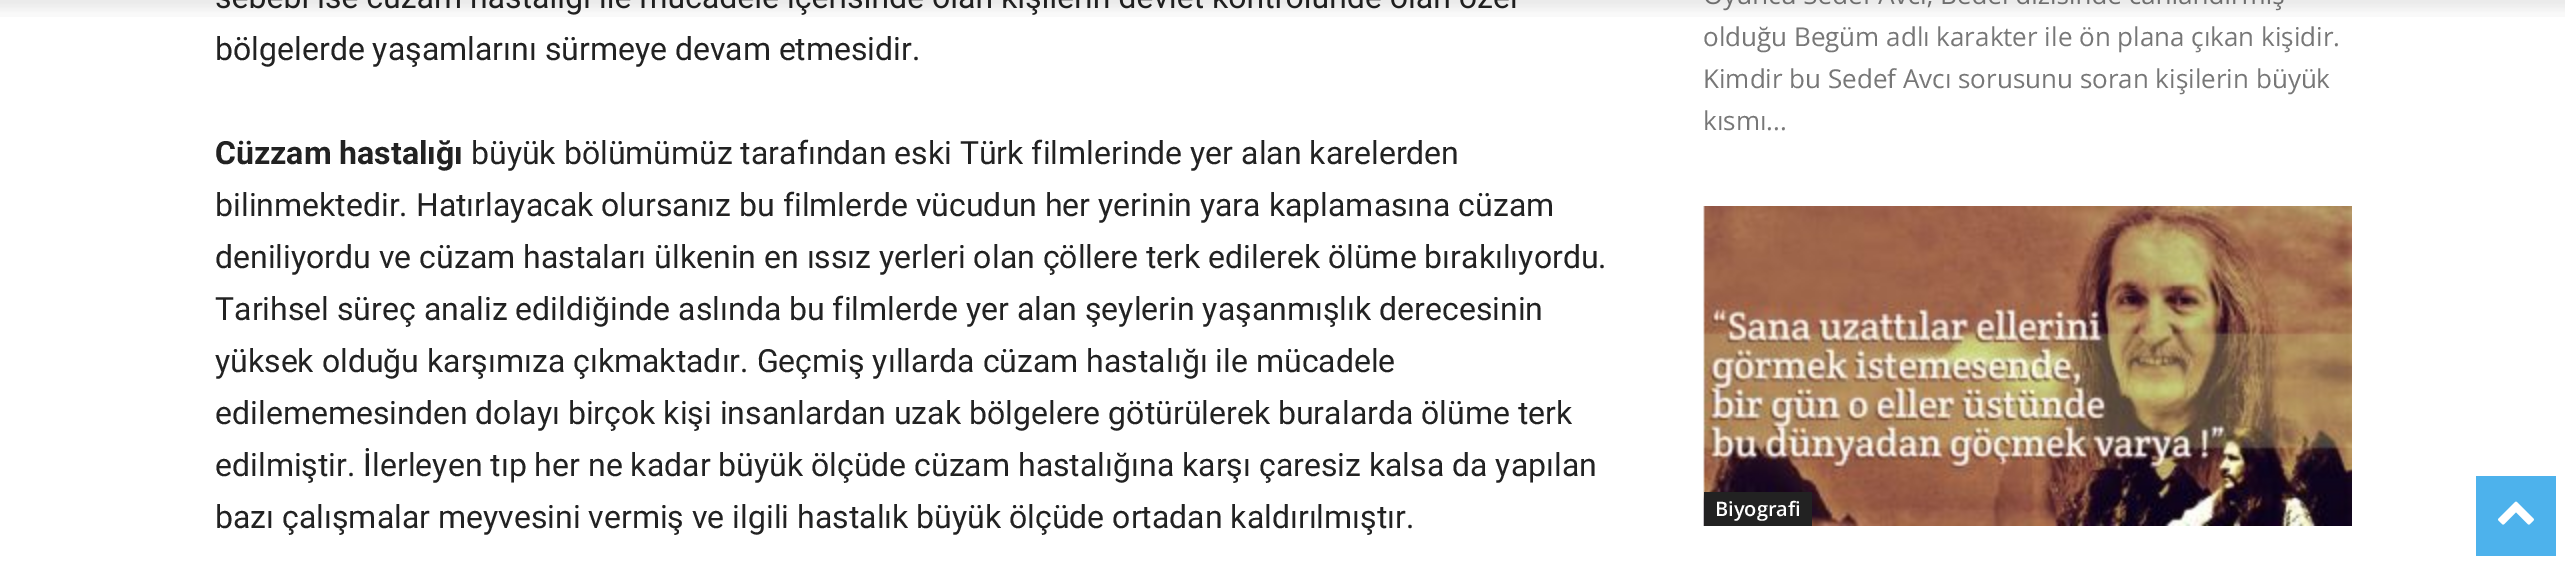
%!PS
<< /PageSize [2565 564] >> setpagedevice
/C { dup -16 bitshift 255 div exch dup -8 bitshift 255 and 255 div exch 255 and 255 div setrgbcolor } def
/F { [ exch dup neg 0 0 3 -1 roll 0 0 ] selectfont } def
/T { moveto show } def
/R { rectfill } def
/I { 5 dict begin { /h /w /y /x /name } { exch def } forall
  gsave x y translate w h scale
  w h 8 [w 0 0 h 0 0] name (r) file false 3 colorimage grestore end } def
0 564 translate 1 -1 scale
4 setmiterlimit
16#FFFFFF C
0 0 2565 564 R
/OpenSans-Regular 26 F
16#777777 C
(,) 1927 4 T
(1.rgb) 0 0 2565 17 I
/Roboto-Regular 32 F
16#222222 C
(bölgelerde yaşamlarını sürmeye devam etmesidir.) 215 60 T
/Roboto-Bold 32 F
(Cüzzam hastalığı) 215 164 T
/Roboto-Regular 32 F
(büyük bölümümüz tarafından eski Türk filmlerinde yer alan karelerden) 471 164 T
(bilinmektedir. Hatırlayacak olursanız bu filmlerde vücudun her yerinin yara kaplamasına cüzam) 215 216 T
(deniliyordu ve cüzam hastaları ülkenin en ıssız yerleri olan çöllere terk edilerek ölüme bırakılıyordu.) 215 268 T
(Tarihsel süreç analiz edildiğinde aslında bu filmlerde yer alan şeylerin yaşanmışlık derecesinin) 215 320 T
(yüksek olduğu karşımıza çıkmaktadır. Geçmiş yıllarda cüzam hastalığı ile mücadele) 215 372 T
(edilememesinden dolayı birçok kişi insanlardan uzak bölgelere götürülerek buralarda ölüme terk) 215 424 T
(edilmiştir. İlerleyen tıp her ne kadar büyük ölçüde cüzam hastalığına karşı çaresiz kalsa da yapılan) 215 476 T
(bazı çalışmalar meyvesini vermiş ve ilgili hastalık büyük ölçüde ortadan kaldırılmıştır.) 215 528 T
/OpenSans-Regular 26 F
16#777777 C
(olduğu Begüm adlı karakter ile ön plana çıkan kişidir.) 1703 46 T
(Kimdir bu Sedef Avcı sorusunu soran kişilerin büyük) 1703 88 T
(kısmı...) 1703 130 T
(2.rgb) 1703 206 649 320 I
16#222222 C
1704 492 108 34 R
/OpenSans-SemiBold 20 F
16#FFFFFF C
(Biyografi) 1715 516 T
16#4DB2EC C
2476 476 80 80 R
(3.rgb) 2498 501 36 24 I
showpage
